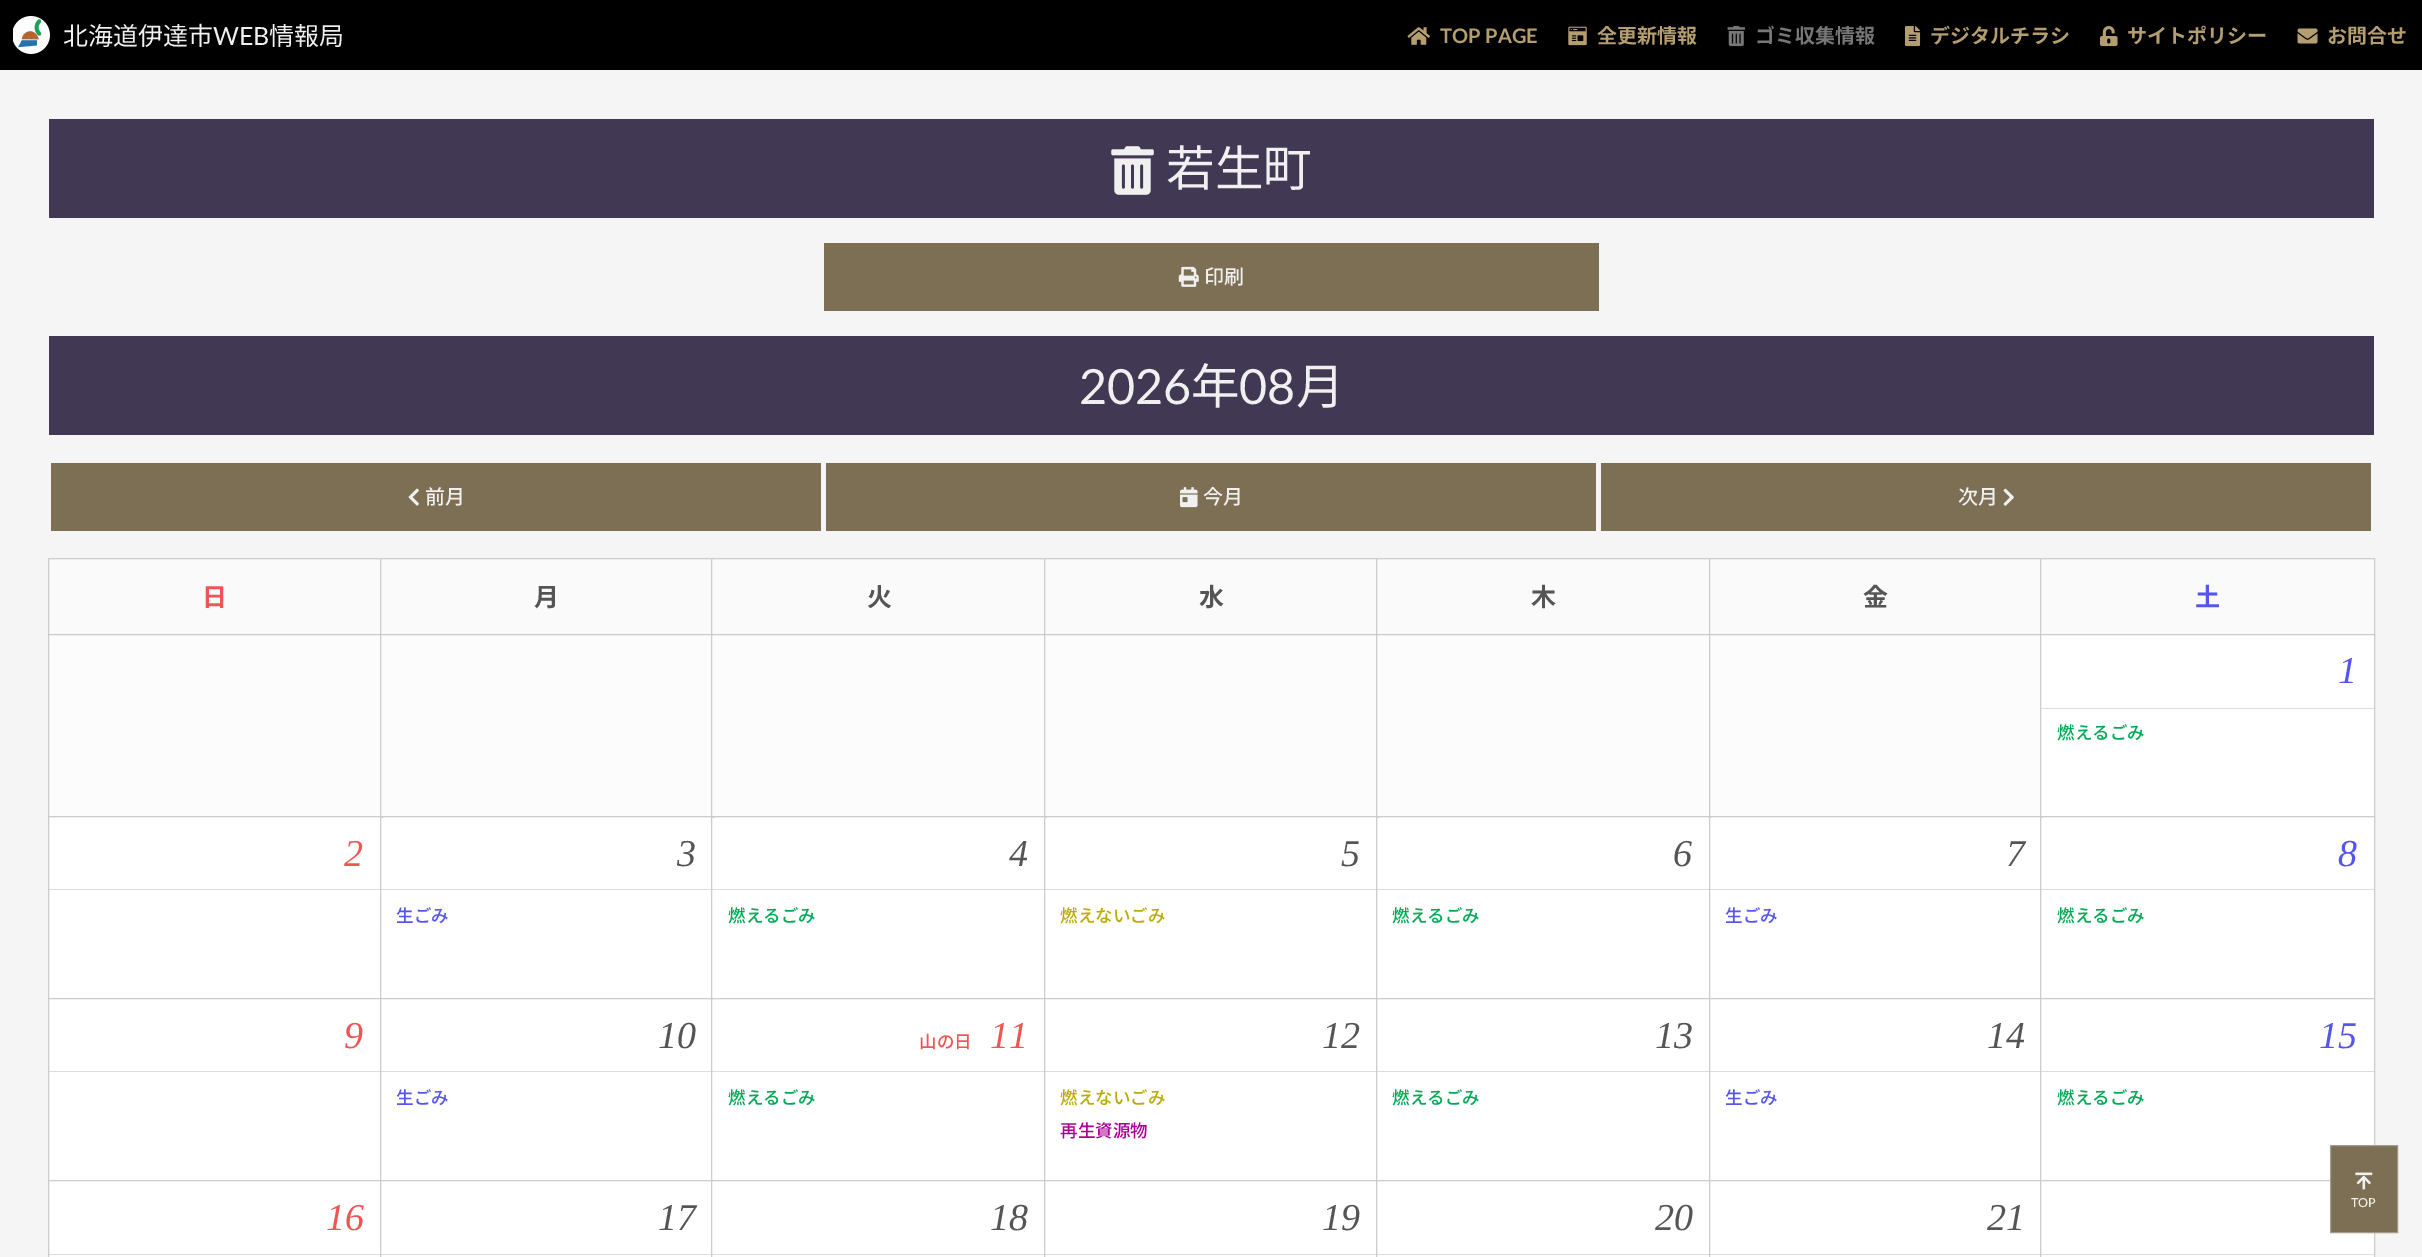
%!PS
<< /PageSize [2422 1257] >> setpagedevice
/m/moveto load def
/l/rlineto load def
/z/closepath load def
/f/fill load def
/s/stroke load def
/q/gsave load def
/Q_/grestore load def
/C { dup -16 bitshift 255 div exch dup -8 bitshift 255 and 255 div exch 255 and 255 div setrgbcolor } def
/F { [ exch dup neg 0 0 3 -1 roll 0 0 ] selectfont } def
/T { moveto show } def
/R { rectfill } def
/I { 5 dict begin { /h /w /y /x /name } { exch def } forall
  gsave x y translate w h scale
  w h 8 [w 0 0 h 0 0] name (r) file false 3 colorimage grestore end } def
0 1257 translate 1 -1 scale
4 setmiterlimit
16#000000 C
0 0 2422 1257 R
(1.rgb) 13 16 37 38 I
/NotoSansJP-Regular 25 F
16#F0F0F0 C
(北海道伊達市) 63 45 T
/Lato-Regular 25 F
(WEB) 213 45 T
/NotoSansJP-Regular 25 F
(情報局) 269 45 T
(2.rgb) 1407 27 23 18 I
/Lato-Bold 20 F
16#B49D6F C
(TOP PAGE) 1440 43 T
(3.rgb) 1568 26 19 20 I
/NotoSansJP-Bold 20 F
(全更新情報) 1597 43 T
(4.rgb) 1727 26 19 21 I
16#777777 C
(ゴミ収集情報) 1755 43 T
(5.rgb) 1905 26 16 21 I
16#B49D6F C
(デジタルチラシ) 1930 43 T
(6.rgb) 2100 26 18 21 I
(サイトポリシー) 2127 43 T
(7.rgb) 2297 28 21 16 I
(お問合せ) 2327 43 T
16#F5F5F5 C
0 70 2422 1187 R
16#413853 C
49 119 2325 99 R
(8.rgb) 1111 146 43 49 I
/NotoSansJP-Regular 48.5 F
16#F0F0F0 C
(若生町) 1166 186 T
16#7C6F54 C
824 243 775 68 R
(9.rgb) 1178 266 21 21 I
/NotoSansJP-Medium 20 F
16#F0F0F0 C
(印刷) 1204 284 T
16#413853 C
49 336 2325 99 R
/Lato-Regular 48.5 F
16#F0F0F0 C
(2026) 1079 404 T
/NotoSansJP-Regular 48.5 F
(年) 1191 404 T
/Lato-Regular 48.5 F
(08) 1239 404 T
/NotoSansJP-Regular 48.5 F
(月) 1296 404 T
16#7C6F54 C
51 463 770 68 R
(10.rgb) 408 488 11 18 I
/NotoSansJP-Medium 20 F
16#F0F0F0 C
(前月) 425 504 T
16#7C6F54 C
826 463 770 68 R
(11.rgb) 1180 487 18 21 I
16#F0F0F0 C
(今月) 1203 504 T
16#7C6F54 C
1601 463 770 68 R
16#F0F0F0 C
(次月) 1958 504 T
(12.rgb) 2003 488 11 18 I
16#FAFAFA C
49 559 331 75 R
16#CCCCCC C
48.5 558.5 334 77 rectstroke
/NotoSansJP-Bold 25 F
16#EE5555 C
(日) 202 606 T
16#FAFAFA C
381 559 332 75 R
16#CCCCCC C
380.5 558.5 333 77 rectstroke
16#555555 C
(月) 534 606 T
16#FAFAFA C
713 559 331 75 R
16#CCCCCC C
711.5 558.5 334 77 rectstroke
16#555555 C
(火) 867 606 T
16#FAFAFA C
1045 559 333 75 R
16#CCCCCC C
1044.5 558.5 334 77 rectstroke
16#555555 C
(水) 1199 606 T
16#FAFAFA C
1378 559 331 75 R
16#CCCCCC C
1376.5 558.5 334 77 rectstroke
16#555555 C
(木) 1531 606 T
16#FAFAFA C
1710 559 330 75 R
16#CCCCCC C
1709.5 558.5 333 77 rectstroke
16#555555 C
(金) 1863 606 T
16#FAFAFA C
2041 559 333 75 R
16#CCCCCC C
2040.5 558.5 334 77 rectstroke
16#5555EE C
(土) 2195 606 T
16#FCFCFC C
49 635 331 183 R
16#CCCCCC C
48.5 634.5 334 184 rectstroke
16#FCFCFC C
380.5 634.5 m 333 0 l 0 184 l -333 0 l z q f Q_
16#CCCCCC C
s
16#FCFCFC C
713 635 331 183 R
16#CCCCCC C
711.5 634.5 334 184 rectstroke
16#FCFCFC C
1044.5 634.5 m 334 0 l 0 184 l -334 0 l z q f Q_
16#CCCCCC C
s
16#FCFCFC C
1378 635 331 183 R
16#CCCCCC C
1376.5 634.5 334 184 rectstroke
16#FCFCFC C
1710 635 330 183 R
16#CCCCCC C
1709.5 634.5 333 184 rectstroke
16#FFFFFF C
2041 635 333 183 R
16#DDDDDD C
2041 708 333 1 R
16#CCCCCC C
2040.5 634.5 334 184 rectstroke
/LiberationSerif-Italic 38 F
16#5555EE C
(1) 2338 683 T
/NotoSansJP-Medium 17.5 F
16#00AA55 C
(燃えるごみ) 2057 739 T
16#FFFFFF C
49 818 331 180 R
16#DDDDDD C
49 889 332 1 R
16#CCCCCC C
48.5 816.5 334 183 rectstroke
/LiberationSerif-Italic 38 F
16#EE5555 C
(2) 344 866 T
16#FFFFFF C
381 818 332 180 R
16#DDDDDD C
381 889 332 1 R
16#CCCCCC C
380.5 816.5 333 183 rectstroke
16#555555 C
(3) 677 866 T
/NotoSansJP-Medium 17.5 F
16#5555EE C
(生ごみ) 396 922 T
16#FFFFFF C
713 818 331 180 R
16#DDDDDD C
713 889 332 1 R
16#CCCCCC C
711.5 816.5 334 183 rectstroke
/LiberationSerif-Italic 38 F
16#555555 C
(4) 1009 866 T
/NotoSansJP-Medium 17.5 F
16#00AA55 C
(燃えるごみ) 728 922 T
16#FFFFFF C
1045 818 333 180 R
16#DDDDDD C
1045 889 333 1 R
16#CCCCCC C
1044.5 816.5 334 183 rectstroke
/LiberationSerif-Italic 38 F
16#555555 C
(5) 1341 866 T
/NotoSansJP-Medium 17.5 F
16#BBAA00 C
(燃えないごみ) 1060 922 T
16#FFFFFF C
1378 818 331 180 R
16#DDDDDD C
1378 889 332 1 R
16#CCCCCC C
1376.5 816.5 334 183 rectstroke
/LiberationSerif-Italic 38 F
16#555555 C
(6) 1673 866 T
/NotoSansJP-Medium 17.5 F
16#00AA55 C
(燃えるごみ) 1392 922 T
16#FFFFFF C
1710 818 330 180 R
16#DDDDDD C
1710 889 331 1 R
16#CCCCCC C
1709.5 816.5 333 183 rectstroke
/LiberationSerif-Italic 38 F
16#555555 C
(7) 2006 866 T
/NotoSansJP-Medium 17.5 F
16#5555EE C
(生ごみ) 1725 922 T
16#FFFFFF C
2041 818 333 180 R
16#DDDDDD C
2041 889 333 1 R
16#CCCCCC C
2040.5 816.5 334 183 rectstroke
/LiberationSerif-Italic 38 F
16#5555EE C
(8) 2338 866 T
/NotoSansJP-Medium 17.5 F
16#00AA55 C
(燃えるごみ) 2057 922 T
16#FFFFFF C
49 999 331 181 R
16#DDDDDD C
49 1071 332 1 R
16#CCCCCC C
48.5 998.5 334 184 rectstroke
/LiberationSerif-Italic 38 F
16#EE5555 C
(9) 344 1048 T
16#FFFFFF C
381 999 332 181 R
16#DDDDDD C
381 1071 332 1 R
16#CCCCCC C
380.5 998.5 333 184 rectstroke
16#555555 C
(10) 658 1048 T
/NotoSansJP-Medium 17.5 F
16#5555EE C
(生ごみ) 396 1104 T
16#FFFFFF C
713 999 331 181 R
16#DDDDDD C
713 1071 332 1 R
16#CCCCCC C
711.5 998.5 334 184 rectstroke
16#EE5555 C
(山の日) 919 1048 T
/LiberationSerif-Italic 38 F
(11) 990 1048 T
/NotoSansJP-Medium 17.5 F
16#00AA55 C
(燃えるごみ) 728 1104 T
16#FFFFFF C
1045 999 333 181 R
16#DDDDDD C
1045 1071 333 1 R
16#CCCCCC C
1044.5 998.5 334 184 rectstroke
/LiberationSerif-Italic 38 F
16#555555 C
(12) 1322 1048 T
/NotoSansJP-Medium 17.5 F
16#BBAA00 C
(燃えないごみ) 1060 1104 T
16#AA0099 C
(再生資源物) 1060 1137 T
16#FFFFFF C
1378 999 331 181 R
16#DDDDDD C
1378 1071 332 1 R
16#CCCCCC C
1376.5 998.5 334 184 rectstroke
/LiberationSerif-Italic 38 F
16#555555 C
(13) 1655 1048 T
/NotoSansJP-Medium 17.5 F
16#00AA55 C
(燃えるごみ) 1392 1104 T
16#FFFFFF C
1710 999 330 181 R
16#DDDDDD C
1710 1071 331 1 R
16#CCCCCC C
1709.5 998.5 333 184 rectstroke
/LiberationSerif-Italic 38 F
16#555555 C
(14) 1987 1048 T
/NotoSansJP-Medium 17.5 F
16#5555EE C
(生ごみ) 1725 1104 T
16#FFFFFF C
2041 999 333 181 R
16#DDDDDD C
2041 1071 333 1 R
16#CCCCCC C
2040.5 998.5 334 184 rectstroke
/LiberationSerif-Italic 38 F
16#5555EE C
(15) 2319 1048 T
/NotoSansJP-Medium 17.5 F
16#00AA55 C
(燃えるごみ) 2057 1104 T
16#FFFFFF C
49 1181 331 76 R
16#DDDDDD C
49 1254 332 1 R
16#CCCCCC C
48.5 1180.5 334 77 rectstroke
/LiberationSerif-Italic 38 F
16#EE5555 C
(16) 326 1230 T
16#FFFFFF C
381 1181 332 76 R
16#DDDDDD C
381 1254 332 1 R
16#CCCCCC C
380.5 1180.5 333 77 rectstroke
16#555555 C
(17) 658 1230 T
16#FFFFFF C
713 1181 331 76 R
16#DDDDDD C
713 1254 332 1 R
16#CCCCCC C
711.5 1180.5 334 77 rectstroke
16#555555 C
(18) 990 1230 T
16#FFFFFF C
1045 1181 333 76 R
16#DDDDDD C
1045 1254 333 1 R
16#CCCCCC C
1044.5 1180.5 334 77 rectstroke
16#555555 C
(19) 1322 1230 T
16#FFFFFF C
1378 1181 331 76 R
16#DDDDDD C
1378 1254 332 1 R
16#CCCCCC C
1376.5 1180.5 334 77 rectstroke
16#555555 C
(20) 1655 1230 T
16#FFFFFF C
1710 1181 330 76 R
16#DDDDDD C
1710 1254 331 1 R
16#CCCCCC C
1709.5 1180.5 333 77 rectstroke
16#555555 C
(21) 1987 1230 T
16#FFFFFF C
2041 1181 333 76 R
16#DDDDDD C
2041 1254 333 1 R
16#CCCCCC C
2040.5 1180.5 334 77 rectstroke
16#7C6F54 C
2330.5 1145.5 m 67 0 l 0 87 l -67 0 l z q f Q_
16#A39A87 C
s
(13.rgb) 2355 1172 18 18 I
/Lato-Medium 12.5 F
16#F0F0F0 C
(TOP) 2351 1207 T
showpage
